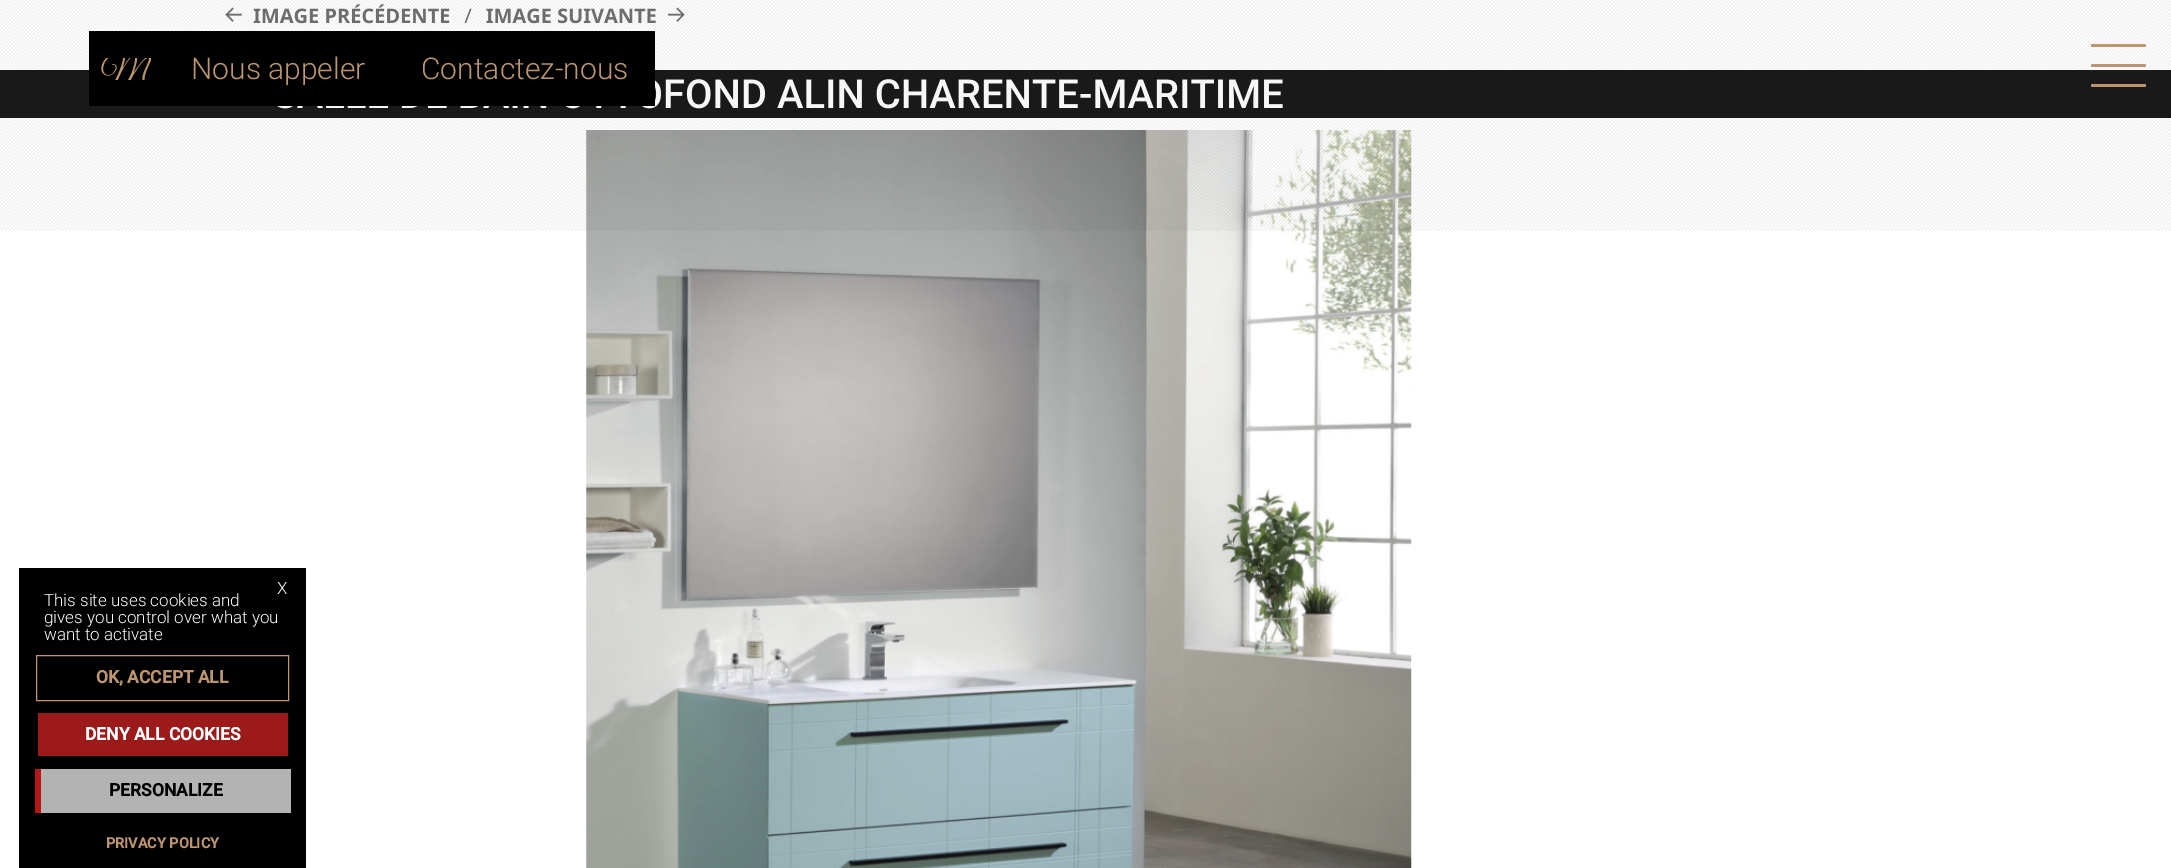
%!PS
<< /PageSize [2171 868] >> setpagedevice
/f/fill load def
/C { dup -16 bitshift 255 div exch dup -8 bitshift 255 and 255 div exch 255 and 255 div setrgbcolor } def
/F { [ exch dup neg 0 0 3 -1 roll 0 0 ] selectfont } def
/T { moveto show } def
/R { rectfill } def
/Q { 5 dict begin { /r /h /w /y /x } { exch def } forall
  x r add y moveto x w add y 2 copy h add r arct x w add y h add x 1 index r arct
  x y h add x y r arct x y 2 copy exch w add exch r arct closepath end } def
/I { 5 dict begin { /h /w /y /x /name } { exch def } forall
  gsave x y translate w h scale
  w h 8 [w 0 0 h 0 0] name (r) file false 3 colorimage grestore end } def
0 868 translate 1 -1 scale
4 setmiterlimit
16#FFFFFF C
0 0 2171 868 R
(1.rgb) 225 7 17 15 I
/NotoSans-Bold 20 F
16#707070 C
(IMAGE PRÉCÉDENTE) 253 23 T
/NotoSans-Regular 20 F
(∕) 464 23 T
/NotoSans-Bold 20 F
(IMAGE SUIVANTE) 486 23 T
(2.rgb) 668 7 17 15 I
16#1A1A1A C
0 70 2171 48 R
/Roboto-Bold 40 F
16#FFFFFF C
(FOND ALIN CHARENTE-MARITIME) 663 108 T
(4.rgb) 586 130 826 738 I
(3.rgb) 0 0 2171 231 I
16#BD9670 C
2091 44 55 3 1.5 Q f
2091 64 55 3 1.5 Q f
2091 84 55 3 1.5 Q f
16#000000 C
89 31 566 75 R
(5.rgb) 101 58 50 22 I
/Roboto-Light 30 F
16#BD9670 C
(Nous appeler) 191 79 T
(Contactez-nous) 421 79 T
16#000000 C
19 568 287 300 R
/Roboto-Light 17 F
16#FFFFFF C
(X) 277 594 T
(This site uses cookies and) 44 606 T
(gives you control over what you) 44 623 T
(want to activate) 44 640 T
16#BD9670 C
36.5 655.5 252 45 rectstroke
/Roboto-Bold 17.5 F
(OK, ACCEPT ALL) 96 683 T
16#9C1A1A C
38 713 250 43 R
16#FFFFFF C
(DENY ALL COOKIES) 85 740 T
16#B3B3B3 C
41 769 250 44 R
16#B61615 C
35 769 6 44 R
16#000000 C
(PERSONALIZE) 109 796 T
/Roboto-Bold 14.5 F
16#BD9670 C
(PRIVACY POLICY) 106 848 T
showpage
